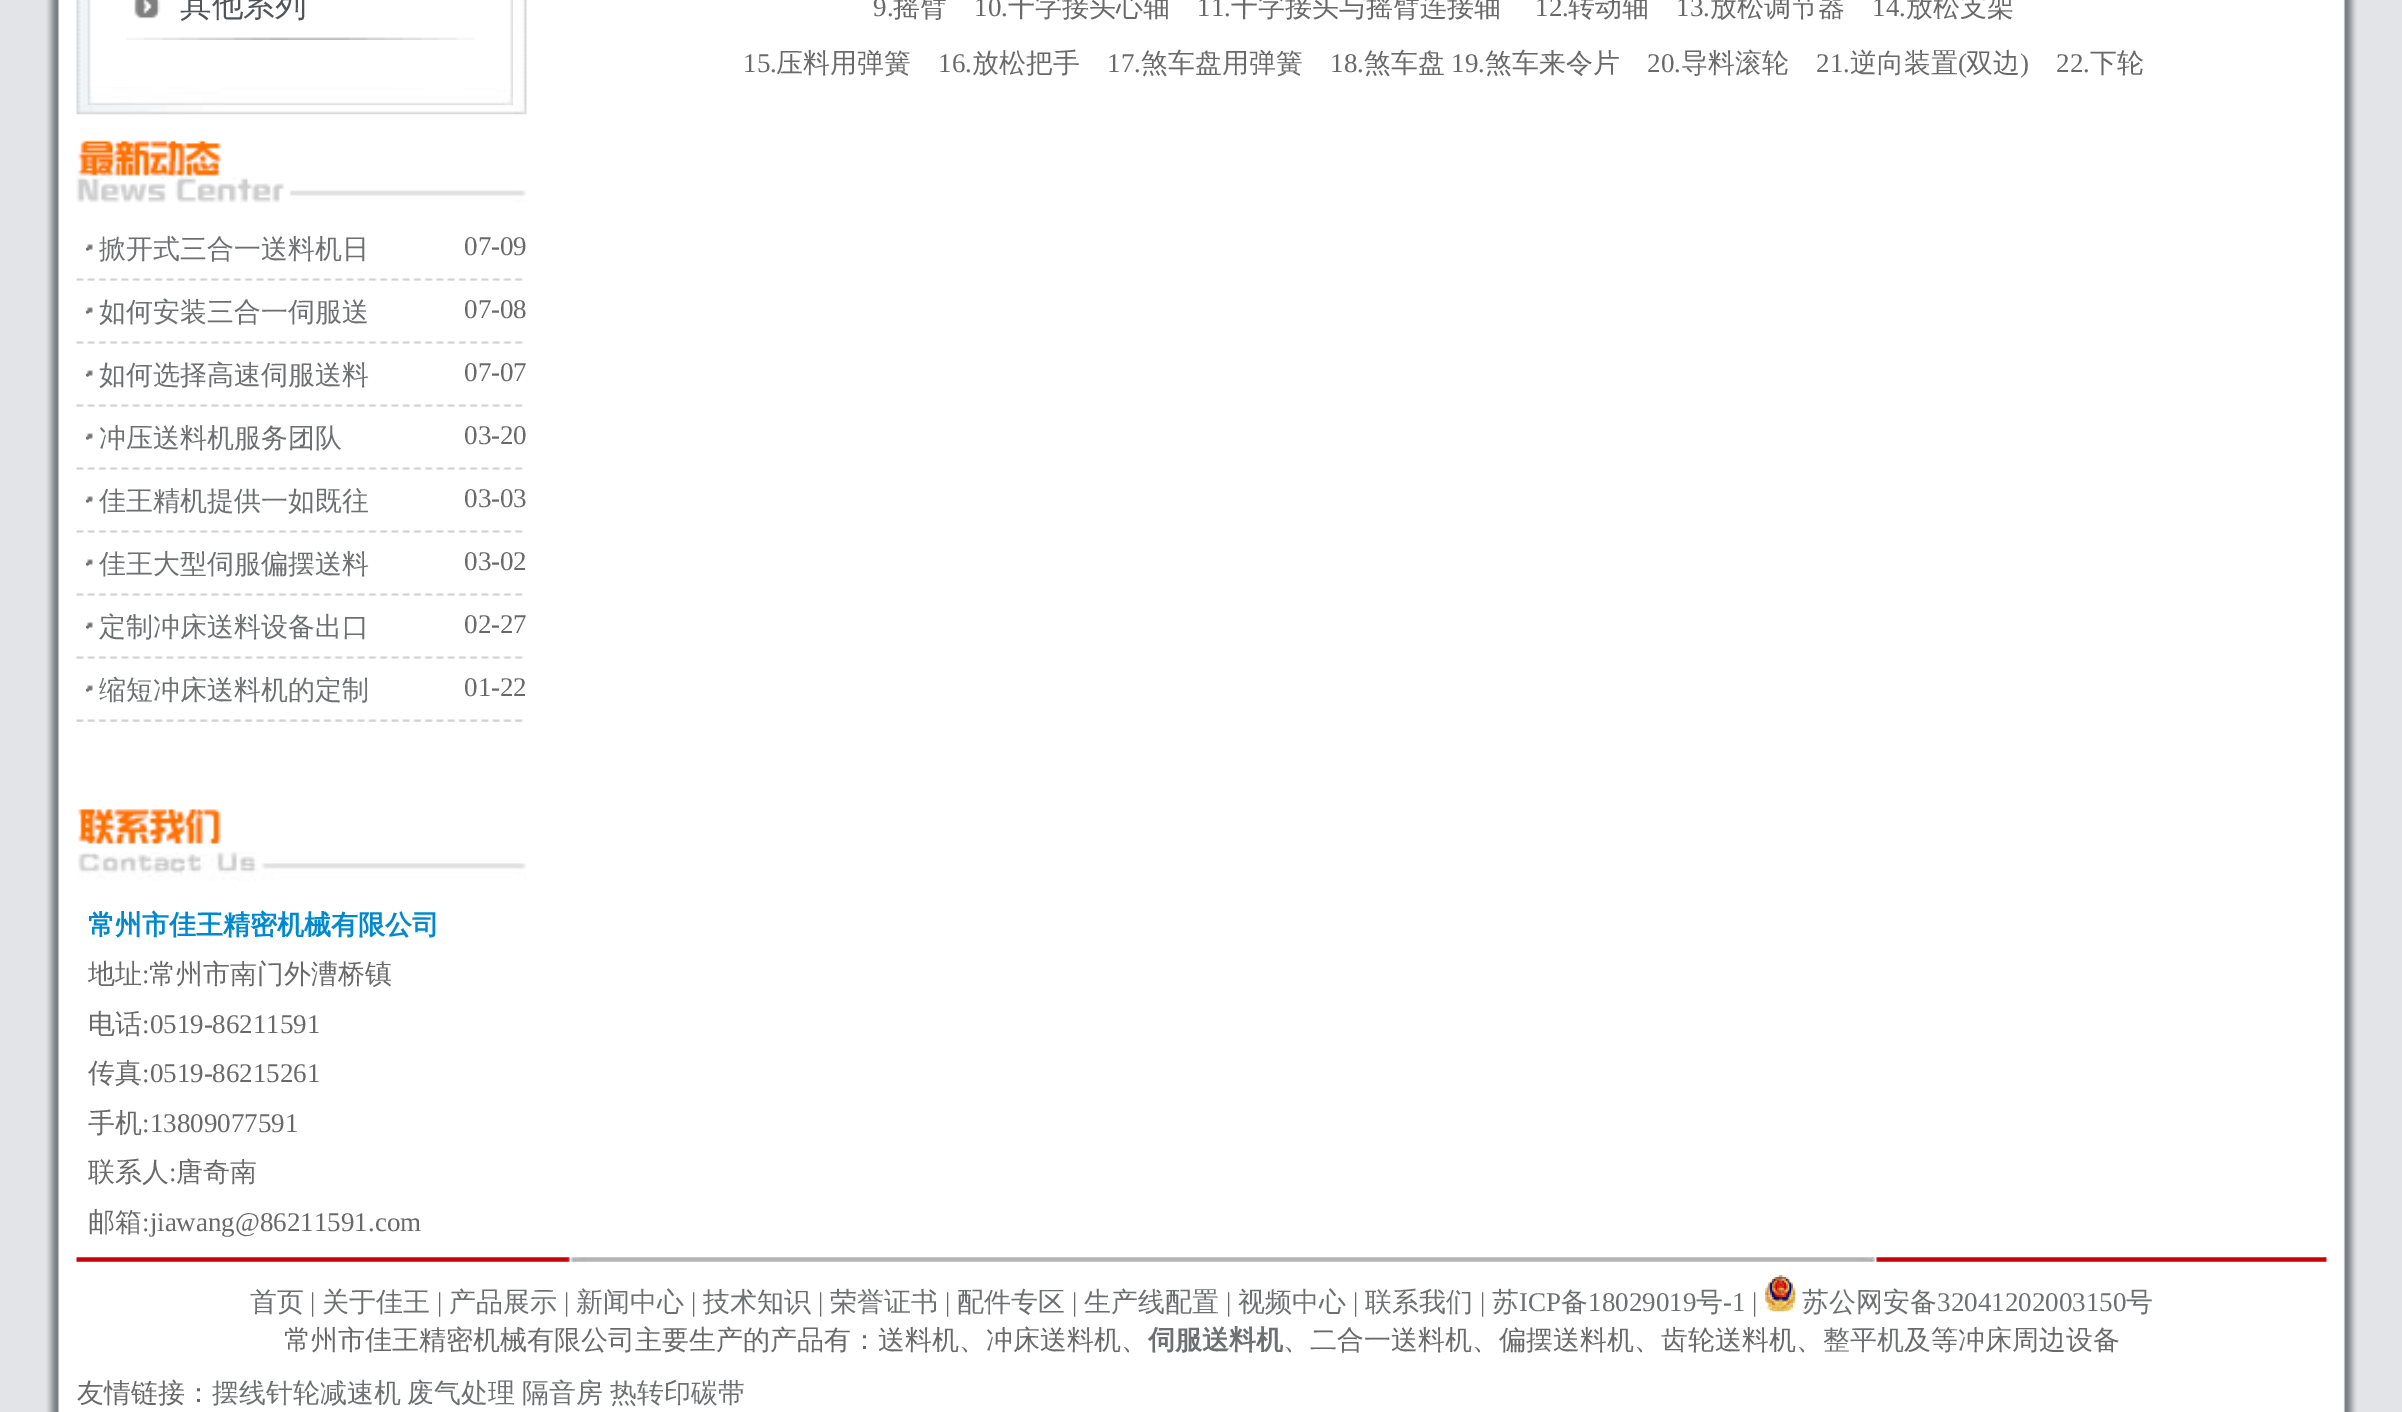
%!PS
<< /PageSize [2402 1412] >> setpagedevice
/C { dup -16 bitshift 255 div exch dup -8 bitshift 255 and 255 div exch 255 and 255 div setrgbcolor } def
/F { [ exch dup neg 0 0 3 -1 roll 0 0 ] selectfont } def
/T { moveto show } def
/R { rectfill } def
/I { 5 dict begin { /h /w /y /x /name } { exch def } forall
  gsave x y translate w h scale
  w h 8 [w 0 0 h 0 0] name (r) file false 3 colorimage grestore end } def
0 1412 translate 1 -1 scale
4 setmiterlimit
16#E3E4E8 C
0 0 2402 1412 R
(1.rgb) 46 0 2311 1412 I
(2.rgb) 76 0 451 106 I
(3.rgb) 87 0 426 88 I
(4.rgb) 126 0 349 40 I
/WenQuanYiZenHei-Medium 31.5 F
16#4F5458 C
(其他系列) 180 16 T
(5.rgb) 87 87 426 19 I
(6.rgb) 76 105 451 10 I
(7.rgb) 76 140 451 63 I
(8.rgb) 76 244 447 37 I
/LiberationSerif-Regular 27 F
16#6C7071 C
(·) 83 258 T
/WenQuanYiZenHei-Medium 27 F
(掀开式三合一送料机日) 99 258 T
/LiberationSerif-Regular 27 F
16#696969 C
(07-09) 464 255 T
(9.rgb) 76 280 447 64 I
16#6C7071 C
(·) 83 321 T
/WenQuanYiZenHei-Medium 27 F
(如何安装三合一伺服送) 99 321 T
/LiberationSerif-Regular 27 F
16#696969 C
(07-08) 464 318 T
(9.rgb) 76 343 447 64 I
16#6C7071 C
(·) 83 384 T
/WenQuanYiZenHei-Medium 27 F
(如何选择高速伺服送料) 99 384 T
/LiberationSerif-Regular 27 F
16#696969 C
(07-07) 464 381 T
(9.rgb) 76 406 447 64 I
16#6C7071 C
(·) 83 447 T
/WenQuanYiZenHei-Medium 27 F
(冲压送料机服务团队) 99 447 T
/LiberationSerif-Regular 27 F
16#696969 C
(03-20) 464 444 T
(9.rgb) 76 469 447 64 I
16#6C7071 C
(·) 83 510 T
/WenQuanYiZenHei-Medium 27 F
(佳王精机提供一如既往) 99 510 T
/LiberationSerif-Regular 27 F
16#696969 C
(03-03) 464 507 T
(9.rgb) 76 532 447 64 I
16#6C7071 C
(·) 83 573 T
/WenQuanYiZenHei-Medium 27 F
(佳王大型伺服偏摆送料) 99 573 T
/LiberationSerif-Regular 27 F
16#696969 C
(03-02) 464 570 T
(9.rgb) 76 595 447 64 I
16#6C7071 C
(·) 83 636 T
/WenQuanYiZenHei-Medium 27 F
(定制冲床送料设备出口) 99 636 T
/LiberationSerif-Regular 27 F
16#696969 C
(02-27) 464 633 T
(9.rgb) 76 658 447 64 I
16#6C7071 C
(·) 83 699 T
/WenQuanYiZenHei-Medium 27 F
(缩短冲床送料机的定制) 99 699 T
/LiberationSerif-Regular 27 F
16#696969 C
(01-22) 464 696 T
(10.rgb) 78 809 449 72 I
/WenQuanYiZenHei-Bold 27 F
16#0089D0 C
(常州市佳王精密机械有限公司) 88 934 T
/WenQuanYiZenHei-Medium 27 F
16#696969 C
(地址) 88 983 T
/LiberationSerif-Regular 27 F
(:) 142 983 T
/WenQuanYiZenHei-Medium 27 F
(常州市南门外漕桥镇) 149 983 T
(电话) 88 1033 T
/LiberationSerif-Regular 27 F
(:0519-86211591) 142 1033 T
/WenQuanYiZenHei-Medium 27 F
(传真) 88 1082 T
/LiberationSerif-Regular 27 F
(:0519-86215261) 142 1082 T
/WenQuanYiZenHei-Medium 27 F
(手机) 88 1132 T
/LiberationSerif-Regular 27 F
(:13809077591) 142 1132 T
/WenQuanYiZenHei-Medium 27 F
(联系人) 88 1181 T
/LiberationSerif-Regular 27 F
(:) 169 1181 T
/WenQuanYiZenHei-Medium 27 F
(唐奇南) 176 1181 T
(邮箱) 88 1231 T
/LiberationSerif-Regular 27 F
(:jiawang@86211591.com) 142 1231 T
(9.) 873 16 T
/WenQuanYiZenHei-Medium 27 F
(摇臂) 893 16 T
/LiberationSerif-Regular 27 F
(10.) 974 16 T
/WenQuanYiZenHei-Medium 27 F
(十字接头心轴) 1008 16 T
/LiberationSerif-Regular 27 F
(11.) 1197 16 T
/WenQuanYiZenHei-Medium 27 F
(十字接头与摇臂连接轴) 1231 16 T
/LiberationSerif-Regular 27 F
(12.) 1535 16 T
/WenQuanYiZenHei-Medium 27 F
(转动轴) 1568 16 T
/LiberationSerif-Regular 27 F
(13.) 1676 16 T
/WenQuanYiZenHei-Medium 27 F
(放松调节器) 1710 16 T
/LiberationSerif-Regular 27 F
(14.) 1872 16 T
/WenQuanYiZenHei-Medium 27 F
(放松支架) 1906 16 T
/LiberationSerif-Regular 27 F
(15.) 743 72 T
/WenQuanYiZenHei-Medium 27 F
(压料用弹簧) 776 72 T
/LiberationSerif-Regular 27 F
(16.) 938 72 T
/WenQuanYiZenHei-Medium 27 F
(放松把手) 972 72 T
/LiberationSerif-Regular 27 F
(17.) 1107 72 T
/WenQuanYiZenHei-Medium 27 F
(煞车盘用弹簧) 1141 72 T
/LiberationSerif-Regular 27 F
(18.) 1330 72 T
/WenQuanYiZenHei-Medium 27 F
(煞车盘) 1364 72 T
/LiberationSerif-Regular 27 F
(19.) 1451 72 T
/WenQuanYiZenHei-Medium 27 F
(煞车来令片) 1485 72 T
/LiberationSerif-Regular 27 F
(20.) 1647 72 T
/WenQuanYiZenHei-Medium 27 F
(导料滚轮) 1681 72 T
/LiberationSerif-Regular 27 F
(21.) 1816 72 T
/WenQuanYiZenHei-Medium 27 F
(逆向装置) 1850 72 T
/LiberationSerif-Regular 27 F
(\() 1958 72 T
/WenQuanYiZenHei-Medium 27 F
(双边) 1966 72 T
/LiberationSerif-Regular 27 F
(\)) 2020 72 T
(22.) 2056 72 T
/WenQuanYiZenHei-Medium 27 F
(下轮) 2090 72 T
(11.rgb) 76 1257 2251 5 I
16#6C7071 C
(首页) 250 1311 T
/LiberationSerif-Regular 27 F
16#696969 C
(|) 310 1311 T
/WenQuanYiZenHei-Medium 27 F
16#6C7071 C
(关于佳王) 322 1311 T
/LiberationSerif-Regular 27 F
16#696969 C
(|) 437 1311 T
/WenQuanYiZenHei-Medium 27 F
16#6C7071 C
(产品展示) 449 1311 T
/LiberationSerif-Regular 27 F
16#696969 C
(|) 564 1311 T
/WenQuanYiZenHei-Medium 27 F
16#6C7071 C
(新闻中心) 576 1311 T
/LiberationSerif-Regular 27 F
16#696969 C
(|) 691 1311 T
/WenQuanYiZenHei-Medium 27 F
16#6C7071 C
(技术知识) 703 1311 T
/LiberationSerif-Regular 27 F
16#696969 C
(|) 818 1311 T
/WenQuanYiZenHei-Medium 27 F
16#6C7071 C
(荣誉证书) 830 1311 T
/LiberationSerif-Regular 27 F
16#696969 C
(|) 945 1311 T
/WenQuanYiZenHei-Medium 27 F
16#6C7071 C
(配件专区) 957 1311 T
/LiberationSerif-Regular 27 F
16#696969 C
(|) 1072 1311 T
/WenQuanYiZenHei-Medium 27 F
16#6C7071 C
(生产线配置) 1084 1311 T
/LiberationSerif-Regular 27 F
16#696969 C
(|) 1226 1311 T
/WenQuanYiZenHei-Medium 27 F
16#6C7071 C
(视频中心) 1238 1311 T
/LiberationSerif-Regular 27 F
16#696969 C
(|) 1353 1311 T
/WenQuanYiZenHei-Medium 27 F
16#6C7071 C
(联系我们) 1365 1311 T
/LiberationSerif-Regular 27 F
16#696969 C
(|) 1480 1311 T
/WenQuanYiZenHei-Medium 27 F
16#6C7071 C
(苏) 1492 1311 T
/LiberationSerif-Regular 27 F
(ICP) 1519 1311 T
/WenQuanYiZenHei-Medium 27 F
(备) 1561 1311 T
/LiberationSerif-Regular 27 F
(18029019) 1588 1311 T
/WenQuanYiZenHei-Medium 27 F
(号) 1696 1311 T
/LiberationSerif-Regular 27 F
(-1) 1723 1311 T
16#696969 C
(|) 1752 1311 T
(12.rgb) 1764 1275 32 37 I
/WenQuanYiZenHei-Medium 27 F
16#6C7071 C
(苏公网安备) 1802 1311 T
/LiberationSerif-Regular 27 F
(32041202003150) 1937 1311 T
/WenQuanYiZenHei-Medium 27 F
(号) 2126 1311 T
16#696969 C
(常州市佳王精密机械有限公司主要生产的产品有：送料机、冲床送料机、) 284 1349 T
/WenQuanYiZenHei-Bold 27 F
16#6C7071 C
(伺服送料机) 1148 1349 T
/WenQuanYiZenHei-Medium 27 F
16#696969 C
(、二合一送料机、偏摆送料机、齿轮送料机、) 1283 1349 T
16#6C7071 C
(整平机) 1823 1349 T
16#696969 C
(及等冲床周边设备) 1904 1349 T
(友情链接：) 77 1402 T
16#6C7071 C
(摆线针轮减速机) 212 1402 T
(废气处理) 407 1402 T
(隔音房) 522 1402 T
(热转印碳带) 610 1402 T
showpage
